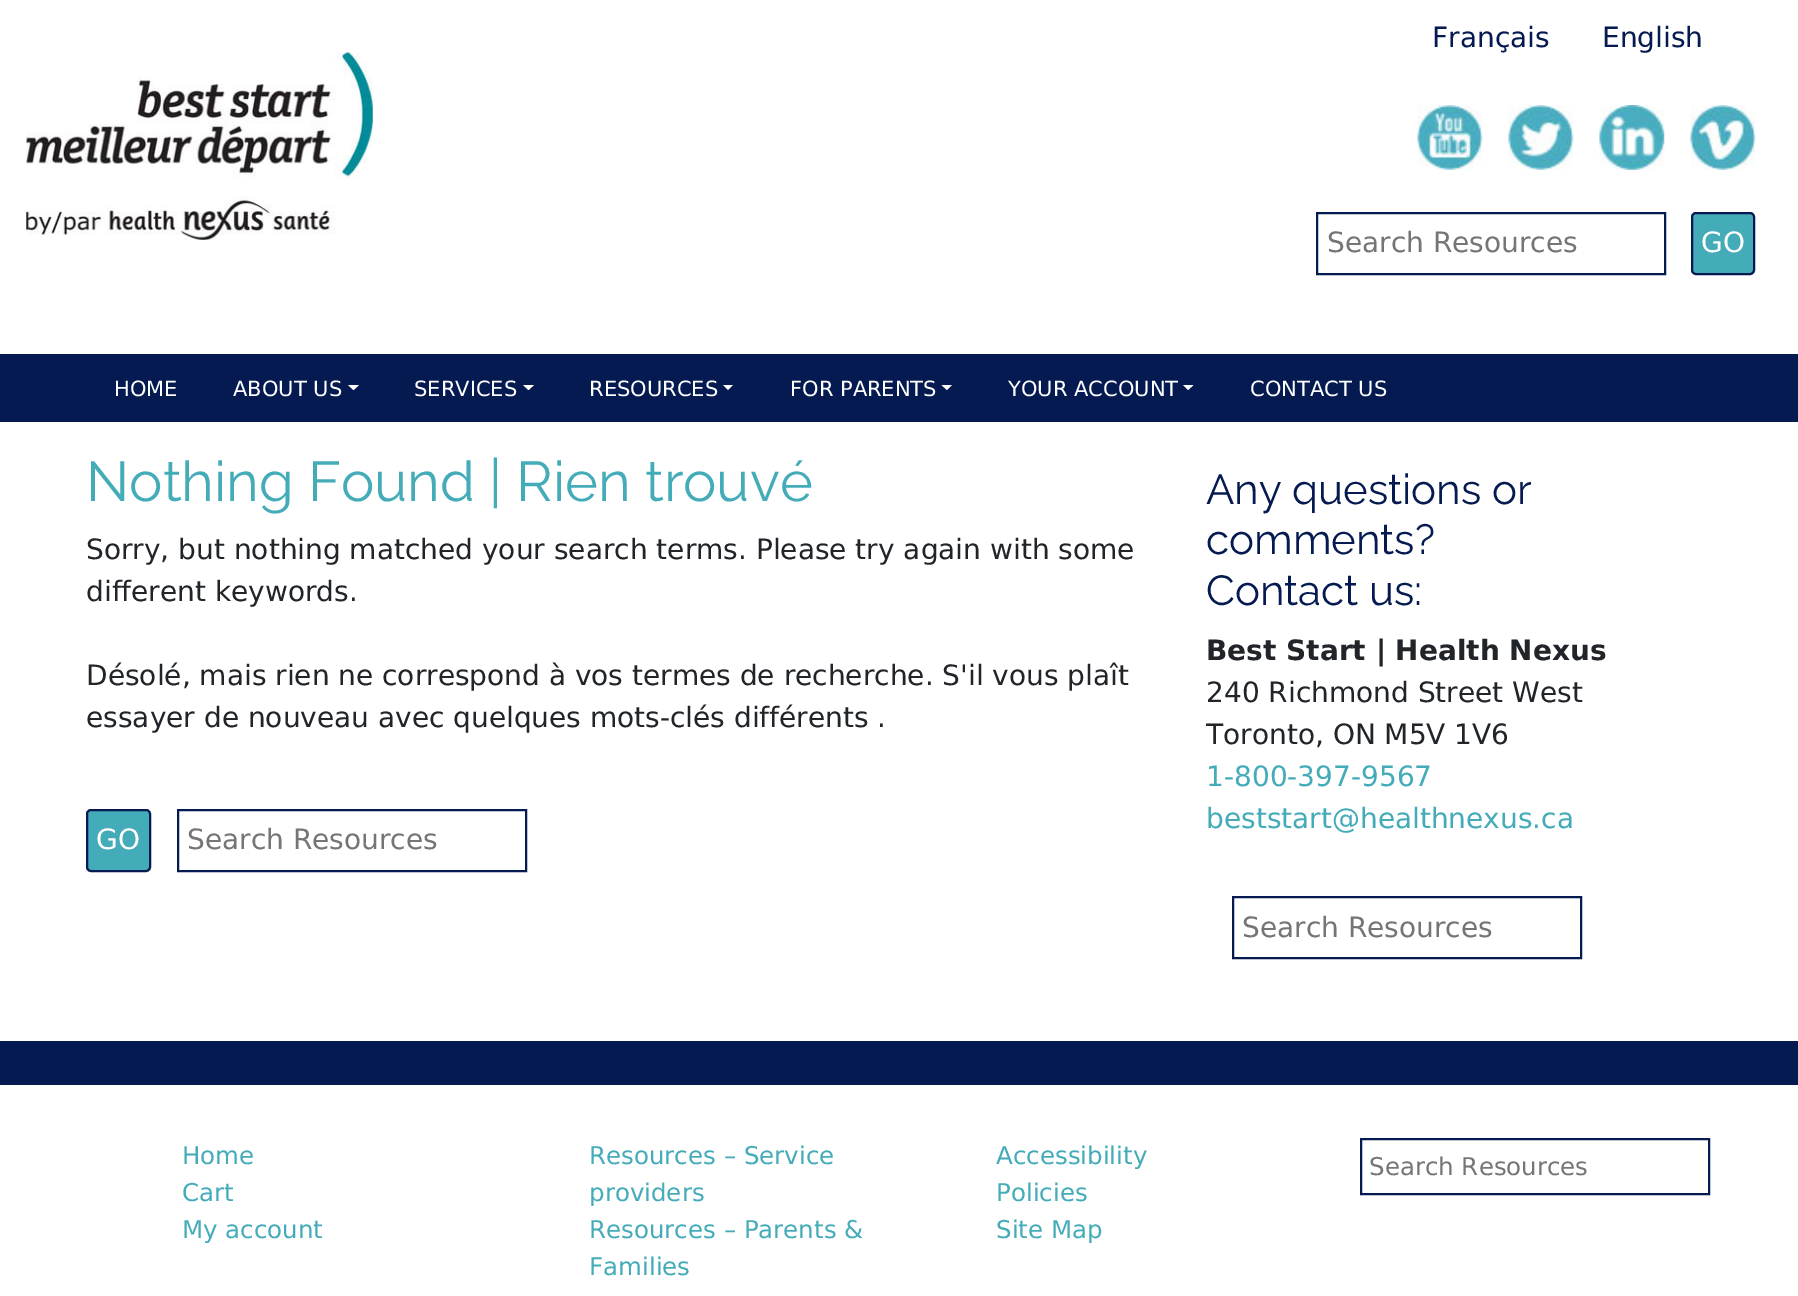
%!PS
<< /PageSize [1798 1296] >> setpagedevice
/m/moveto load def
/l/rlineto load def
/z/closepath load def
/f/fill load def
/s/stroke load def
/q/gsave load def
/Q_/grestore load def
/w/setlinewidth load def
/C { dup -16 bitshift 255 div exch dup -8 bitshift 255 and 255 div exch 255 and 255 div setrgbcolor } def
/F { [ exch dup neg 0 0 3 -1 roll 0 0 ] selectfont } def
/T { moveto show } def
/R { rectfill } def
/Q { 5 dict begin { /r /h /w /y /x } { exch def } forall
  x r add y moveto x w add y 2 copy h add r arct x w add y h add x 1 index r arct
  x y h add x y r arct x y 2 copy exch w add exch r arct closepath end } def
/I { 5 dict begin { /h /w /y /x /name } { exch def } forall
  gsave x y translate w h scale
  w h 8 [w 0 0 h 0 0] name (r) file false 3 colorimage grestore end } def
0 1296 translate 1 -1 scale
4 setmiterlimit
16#FFFFFF C
0 0 1798 1296 R
(1.rgb) 26 52 347 188 I
/DejaVuSans-Regular 28 F
16#041A50 C
(Français) 1432 47 T
(English) 1602 47 T
(2.rgb) 1417 105 66 65 I
(3.rgb) 1508 105 66 65 I
(4.rgb) 1599 105 66 65 I
(5.rgb) 1690 105 66 65 I
2 w
1317 213 348 61 rectstroke
16#757575 C
(Search Resources) 1327 252 T
16#44ABB8 C
1692 213 62 61 4 Q q f Q_
16#041A50 C
s
16#FFFFFF C
(GO) 1701 252 T
16#041A50 C
0 354 1798 68 R
/DejaVuSans-Regular 21 F
16#FFFFFF C
(HOME) 114 396 T
(ABOUT US) 233 396 T
348 385 m 11 0 l -5.5 5 l z f
(SERVICES) 414 396 T
523 385 m 11 0 l -5.5 5 l z f
(RESOURCES) 589 396 T
723 385 m 10 0 l -5 5 l z f
(FOR PARENTS) 790 396 T
941.5 385 m 10.5 0 l -5 5 l z f
(YOUR ACCOUNT) 1008 396 T
1183 385 m 10.5 0 l -5.5 5 l z f
(CONTACT US) 1250 396 T
/Raleway-Regular 56 F
16#44ABB8 C
(Nothing Found | Rien trouvé) 86 501 T
/DejaVuSans-Regular 28 F
16#212529 C
(Sorry, but nothing matched your search terms. Please try again with some) 86 559 T
(different keywords.) 86 601 T
(Désolé, mais rien ne correspond à vos termes de recherche. S'il vous plaît) 86 685 T
(essayer de nouveau avec quelques mots-clés différents .) 86 727 T
16#44ABB8 C
87 810 63 61 4 Q q f Q_
16#041A50 C
s
16#FFFFFF C
(GO) 96 849 T
16#041A50 C
178 810 348 61 rectstroke
16#757575 C
(Search Resources) 187 849 T
/Raleway-Regular 42 F
16#041A50 C
(Any questions or) 1206 504 T
(comments?) 1206 554 T
(Contact us:) 1206 605 T
/DejaVuSans-Bold 28 F
16#212529 C
(Best Start | Health Nexus) 1206 660 T
/DejaVuSans-Regular 28 F
(240 Richmond Street West) 1206 702 T
(Toronto, ON M5V 1V6) 1206 744 T
16#44ABB8 C
(1-800-397-9567) 1206 786 T
(beststart@healthnexus.ca) 1206 828 T
16#041A50 C
1233 897 348 61 rectstroke
16#757575 C
(Search Resources) 1242 937 T
16#041A50 C
0 1041 1798 44 R
/DejaVuSans-Regular 24.5 F
16#44ABB8 C
(Home) 182 1164 T
(Cart) 182 1201 T
(My account) 182 1238 T
(Resources – Service) 589 1164 T
(providers) 589 1201 T
(Resources – Parents &) 589 1238 T
(Families) 589 1275 T
(Accessibility) 996 1164 T
(Policies) 996 1201 T
(Site Map) 996 1238 T
16#041A50 C
1361 1139 348 55 rectstroke
16#757575 C
(Search Resources) 1369 1175 T
showpage
